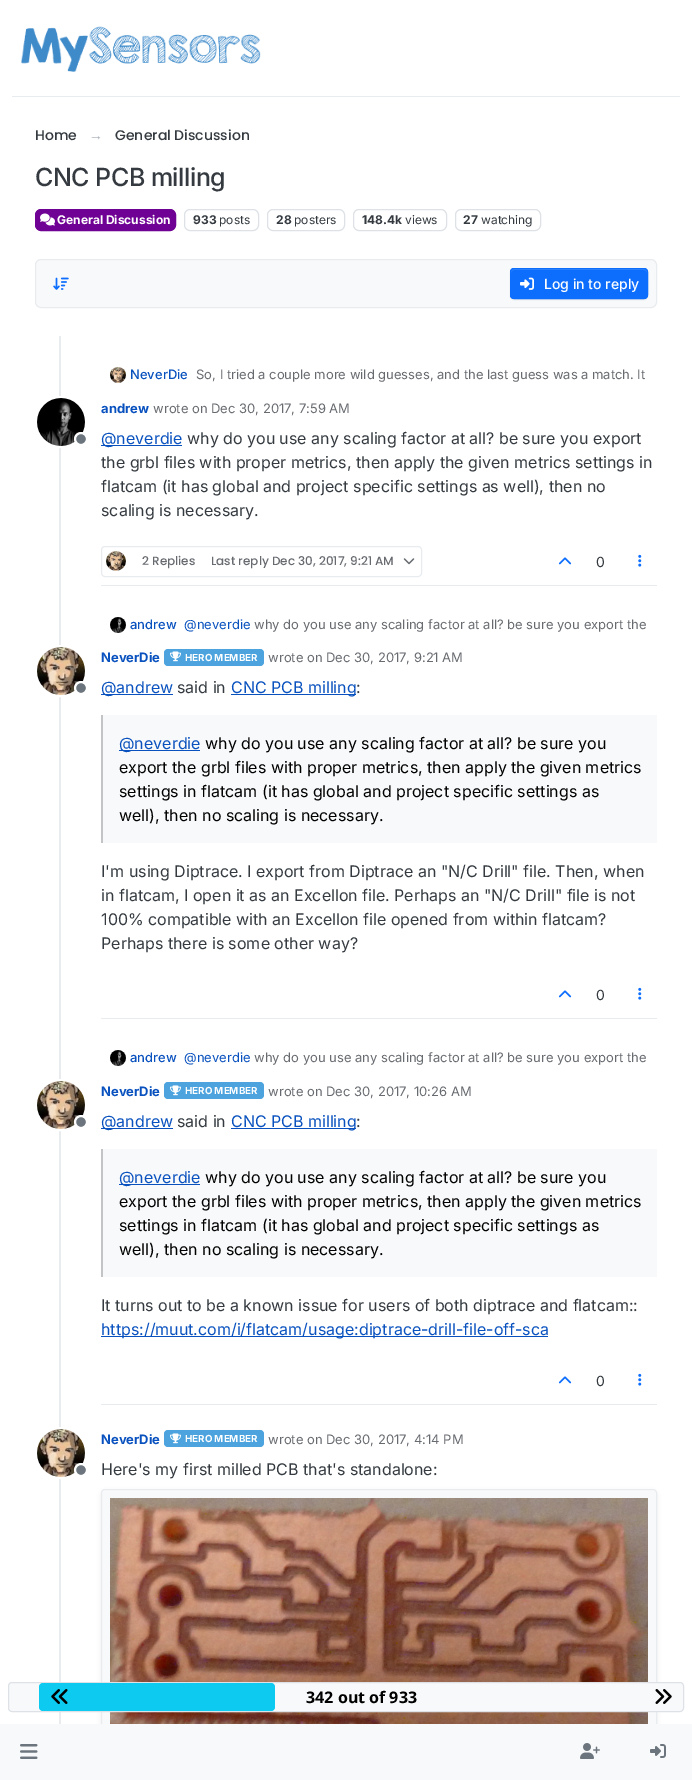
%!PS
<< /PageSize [692 1780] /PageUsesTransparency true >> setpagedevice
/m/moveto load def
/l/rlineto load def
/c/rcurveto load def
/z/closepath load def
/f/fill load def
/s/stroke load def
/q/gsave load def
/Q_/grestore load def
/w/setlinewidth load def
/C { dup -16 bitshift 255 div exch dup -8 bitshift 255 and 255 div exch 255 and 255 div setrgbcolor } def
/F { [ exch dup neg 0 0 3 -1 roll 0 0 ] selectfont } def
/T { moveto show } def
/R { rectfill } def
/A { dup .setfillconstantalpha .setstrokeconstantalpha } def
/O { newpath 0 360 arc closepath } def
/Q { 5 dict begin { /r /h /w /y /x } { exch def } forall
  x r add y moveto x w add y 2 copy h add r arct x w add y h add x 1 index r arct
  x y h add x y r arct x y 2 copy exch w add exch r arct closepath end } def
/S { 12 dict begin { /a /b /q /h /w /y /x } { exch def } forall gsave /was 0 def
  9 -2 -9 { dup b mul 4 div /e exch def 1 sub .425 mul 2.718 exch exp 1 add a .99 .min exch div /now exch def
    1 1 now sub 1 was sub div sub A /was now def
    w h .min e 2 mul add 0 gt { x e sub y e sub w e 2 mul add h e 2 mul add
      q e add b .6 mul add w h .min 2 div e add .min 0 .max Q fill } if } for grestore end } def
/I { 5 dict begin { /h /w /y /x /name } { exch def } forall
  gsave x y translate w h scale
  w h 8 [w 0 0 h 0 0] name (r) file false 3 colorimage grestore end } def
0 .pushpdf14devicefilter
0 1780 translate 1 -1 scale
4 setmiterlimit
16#FFFFFF C
0 0 692 1780 R
16#E9ECEF C
12 96 668 1 R
(1.rgb) 21 26 240 46 I
/Poppins-Medium 14 F
16#343A40 C
(Home) 35 140 T
/LiberationSans-Regular 14 F
16#ADB5BD C
(→) 89 140 T
/Poppins-Medium 14 F
16#343A40 C
(General Discussion) 115 140 T
/Inter-Medium 25 F
35 186 m -.5 0 (CNC PCB milling) ashow
16#6F0294 C
35.5 209.5 140 21 5.5 Q q f Q_
s
(2.rgb) 40 213 15 13 I
/Inter-Bold 12 F
16#FFFFFF C
(General Discussion) 57 224 T
16#DEE2E6 C
184.5 209.5 74 21 5.5 Q s
16#343A40 C
(933) 193 224 T
/Inter-Regular 12 F
(posts) 219 224 T
16#DEE2E6 C
267.5 209.5 77 21 5.5 Q s
/Inter-Bold 12 F
16#343A40 C
(28) 276 224 T
/Inter-Regular 12 F
(posters) 294 224 T
16#DEE2E6 C
353.5 209.5 93 21 5.5 Q s
/Inter-Bold 12 F
16#343A40 C
(148.4k) 362 224 T
/Inter-Regular 12 F
(views) 405 224 T
16#DEE2E6 C
455.5 209.5 85 21 5.5 Q s
/Inter-Bold 12 F
16#343A40 C
(27) 463 224 T
/Inter-Regular 12 F
(watching) 481 224 T
16#F8F9FA C
35.5 259.5 621 48 5.5 Q q f Q_
16#E9ECEF C
s
(3.rgb) 53 277 16 13 I
16#000000 C
510 269 138 31 4 .5 .07 S
16#0D6EFD C
510 268 138 31 4 Q f
16#3184FD C
514 270 m 130 0 l 2 0 3 1 3 3 c 0 -2 0 -4 -2 -4 c -132 0 l -2 0 -2 2 -2 4 c 0 -2 1 -3 3 -3 c z f
16#0D6EFD C
510.5 268.5 137 30 3.5 Q s
(4.rgb) 520 277 14 13 I
/Inter-Medium 14 F
16#FFFFFF C
(Log in to reply) 544 289 T
16#E9ECEF C
59 336 2 1388 R
(5.rgb) 110 367 16 16 I
/Inter-Medium 13 F
16#0951BE C
(NeverDie) 130 379 T
/Inter-Regular 13 F
16#676B70 C
(So, I tried a couple more wild guesses, and the last guess was a match. It) 196 379 T
16#FFFFFF C
2 w
61 422 25 O s
(6.rgb) 37 398 48 48 I
16#6C757D C
81 439 6 O q f Q_
16#FFFFFF C
s
/Inter-Bold 13 F
16#0951BE C
(andrew) 101 413 T
/Inter-Regular 13 F
16#676B70 C
(wrote on Dec 30, 2017, 7:59 AM) 153 413 T
16#0951BE C
101 445 81 1 R
/Inter-Regular 16 F
(@neverdie) 101 444 T
16#343A40 C
(why do you use any scaling factor at all? be sure you export) 187 444 T
(the grbl files with proper metrics, then apply the given metrics settings in) 101 468 T
(flatcam \(it has global and project specific settings as well\), then no) 101 492 T
(scaling is necessary.) 101 516 T
16#E9ECEF C
101 585 556 1 R
1 w
101.5 546.5 320 30 3.5 Q s
(7.rgb) 106 551 20 20 I
/Poppins-Medium 12 F
16#676B70 C
(2 Replies) 142 565 T
(Last reply Dec 30, 2017, 9:21 AM) 211 565 T
(8.rgb) 403 558 12 7 I
(9.rgb) 558 557 14 8 I
/Inter-Regular 14 F
16#343A40 C
(0) 596 567 T
(10.rgb) 638 554 4 13 I
(11.rgb) 110 617 16 16 I
/Inter-Medium 13 F
16#0951BE C
(andrew) 130 629 T
/Inter-Regular 13 F
(@neverdie) 184 629 T
16#676B70 C
(why do you use any scaling factor at all? be sure you export the) 254 629 T
16#FFFFFF C
2 w
61 671 25 O s
(12.rgb) 37 647 48 48 I
16#6C757D C
81 688 6 O q f Q_
16#FFFFFF C
s
/Inter-Bold 13 F
16#0951BE C
(NeverDie) 101 662 T
16#4CA3DE C
164 649 100 17 4 Q f
(13.rgb) 170 651 11 11 I
/Inter-Bold 9.75 F
16#FFFFFF C
(HERO MEMBER) 185 661 T
/Inter-Regular 13 F
16#676B70 C
(wrote on Dec 30, 2017, 9:21 AM) 268 662 T
16#0951BE C
101 694 72 1 R
/Inter-Regular 16 F
(@andrew) 101 693 T
16#343A40 C
(said in) 177 693 T
16#0951BE C
231 694 125 1 R
(CNC PCB milling) 231 693 T
16#343A40 C
(:) 356 693 T
16#F8F9FA C
103 715 554 128 R
16#C2C4C6 C
101 715 2 128 R
16#0951BE C
119 750 81 1 R
(@neverdie) 119 749 T
16#000000 C
(why do you use any scaling factor at all? be sure you) 205 749 T
(export the grbl files with proper metrics, then apply the given metrics) 119 773 T
(settings in flatcam \(it has global and project specific settings as) 119 797 T
(well\), then no scaling is necessary.) 119 821 T
16#343A40 C
(I'm using Diptrace. I export from Diptrace an "N/C Drill" file. Then, when) 101 877 T
(in flatcam, I open it as an Excellon file. Perhaps an "N/C Drill" file is not) 101 901 T
(100% compatible with an Excellon file opened from within flatcam?) 101 925 T
(Perhaps there is some other way?) 101 949 T
16#E9ECEF C
101 1018 556 1 R
(9.rgb) 558 990 14 8 I
/Inter-Regular 14 F
16#343A40 C
(0) 596 1000 T
(10.rgb) 638 987 4 13 I
(11.rgb) 110 1050 16 16 I
/Inter-Medium 13 F
16#0951BE C
(andrew) 130 1062 T
/Inter-Regular 13 F
(@neverdie) 184 1062 T
16#676B70 C
(why do you use any scaling factor at all? be sure you export the) 254 1062 T
16#FFFFFF C
61 1105 25 O s
(12.rgb) 37 1081 48 48 I
16#6C757D C
81 1122 6 O q f Q_
16#FFFFFF C
s
/Inter-Bold 13 F
16#0951BE C
(NeverDie) 101 1096 T
16#4CA3DE C
164 1082 100 17 4 Q f
(13.rgb) 170 1085 11 11 I
/Inter-Bold 9.75 F
16#FFFFFF C
(HERO MEMBER) 185 1094 T
/Inter-Regular 13 F
16#676B70 C
(wrote on Dec 30, 2017, 10:26 AM) 268 1096 T
16#0951BE C
101 1128 72 1 R
/Inter-Regular 16 F
(@andrew) 101 1127 T
16#343A40 C
(said in) 177 1127 T
16#0951BE C
231 1128 125 1 R
(CNC PCB milling) 231 1127 T
16#343A40 C
(:) 356 1127 T
16#F8F9FA C
103 1149 554 128 R
16#C2C4C6 C
101 1149 2 128 R
16#0951BE C
119 1184 81 1 R
(@neverdie) 119 1183 T
16#000000 C
(why do you use any scaling factor at all? be sure you) 205 1183 T
(export the grbl files with proper metrics, then apply the given metrics) 119 1207 T
(settings in flatcam \(it has global and project specific settings as) 119 1231 T
(well\), then no scaling is necessary.) 119 1255 T
16#343A40 C
(It turns out to be a known issue for users of both diptrace and flatcam::) 101 1311 T
16#0951BE C
101 1336 447 1 R
(https://muut.com/i/flatcam/usage:diptrace-drill-file-off-sca) 101 1335 T
16#E9ECEF C
101 1404 556 1 R
(9.rgb) 558 1376 14 8 I
/Inter-Regular 14 F
16#343A40 C
(0) 596 1386 T
(10.rgb) 638 1373 4 13 I
16#FFFFFF C
61 1453 25 O s
(12.rgb) 37 1429 48 48 I
16#6C757D C
81 1470 6 O q f Q_
16#FFFFFF C
s
/Inter-Bold 13 F
16#0951BE C
(NeverDie) 101 1444 T
16#4CA3DE C
164 1430 100 17 4 Q f
(13.rgb) 170 1433 11 11 I
/Inter-Bold 9.75 F
16#FFFFFF C
(HERO MEMBER) 185 1442 T
/Inter-Regular 13 F
16#676B70 C
(wrote on Dec 30, 2017, 4:14 PM) 268 1444 T
/Inter-Regular 16 F
16#343A40 C
(Here's my first milled PCB that's standalone:) 101 1475 T
16#000000 C
101 1491 556 284 4 2 .07 S
16#F8F9FA C
101.5 1489.5 555 283 3.5 Q q f Q_
16#E9ECEF C
1 w
s
(14.rgb) 110 1498 538 226 I
16#F8F9FA C
8.5 1682.5 675 29 3.5 Q q f Q_
16#DEE2E6 C
s
16#0DCAF0 C
39 1683 236 28 4 Q f
(15.rgb) 51 1689 17 15 I
/NotoSans-Bold 16 F
16#000000 C
(342 out of 933) 306 1703 T
(16.rgb) 655 1689 17 15 I
16#F8F9FA C
0 1724 692 56 R
(17.rgb) 20 1744 18 15 I
(18.rgb) 580 1743 20 16 I
(19.rgb) 650 1744 16 14 I
.poppdf14devicefilter showpage
